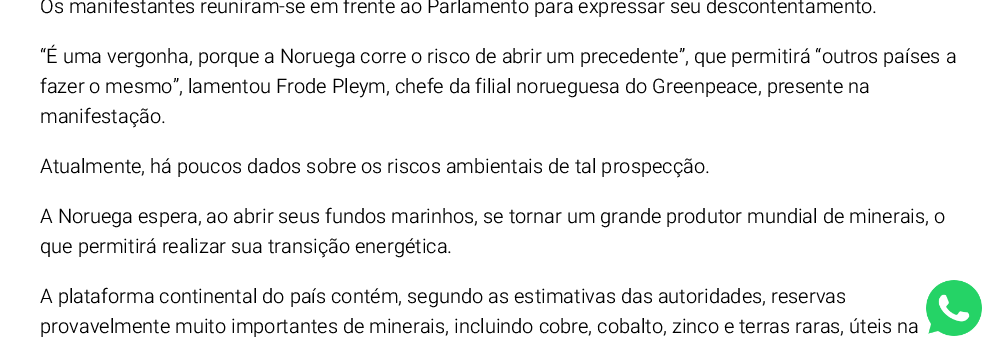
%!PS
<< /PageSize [999 353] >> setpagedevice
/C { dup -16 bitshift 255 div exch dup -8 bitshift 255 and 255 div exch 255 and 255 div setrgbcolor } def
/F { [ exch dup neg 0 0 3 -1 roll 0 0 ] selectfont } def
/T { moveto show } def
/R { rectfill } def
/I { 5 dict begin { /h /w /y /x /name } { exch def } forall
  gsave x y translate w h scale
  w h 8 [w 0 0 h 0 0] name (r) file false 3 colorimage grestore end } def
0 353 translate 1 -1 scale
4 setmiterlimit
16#FFFFFF C
0 0 999 353 R
/Heebo-Light 20 F
16#000000 C
(Os manifestantes reuniram-se em frente ao Parlamento para expressar seu descontentamento.) 40 13 T
(“É uma vergonha, porque a Noruega corre o risco de abrir um precedente”, que permitirá “outros países a) 40 63 T
(fazer o mesmo”, lamentou Frode Pleym, chefe da filial norueguesa do Greenpeace, presente na) 40 93 T
(manifestação.) 40 123 T
(Atualmente, há poucos dados sobre os riscos ambientais de tal prospecção.) 40 173 T
(A Noruega espera, ao abrir seus fundos marinhos, se tornar um grande produtor mundial de minerais, o) 40 223 T
(que permitirá realizar sua transição energética.) 40 253 T
(A plataforma continental do país contém, segundo as estimativas das autoridades, reservas) 40 303 T
(provavelmente muito importantes de minerais, incluindo cobre, cobalto, zinco e terras raras, úteis na) 40 333 T
(1.rgb) 926 280 56 56 I
showpage
